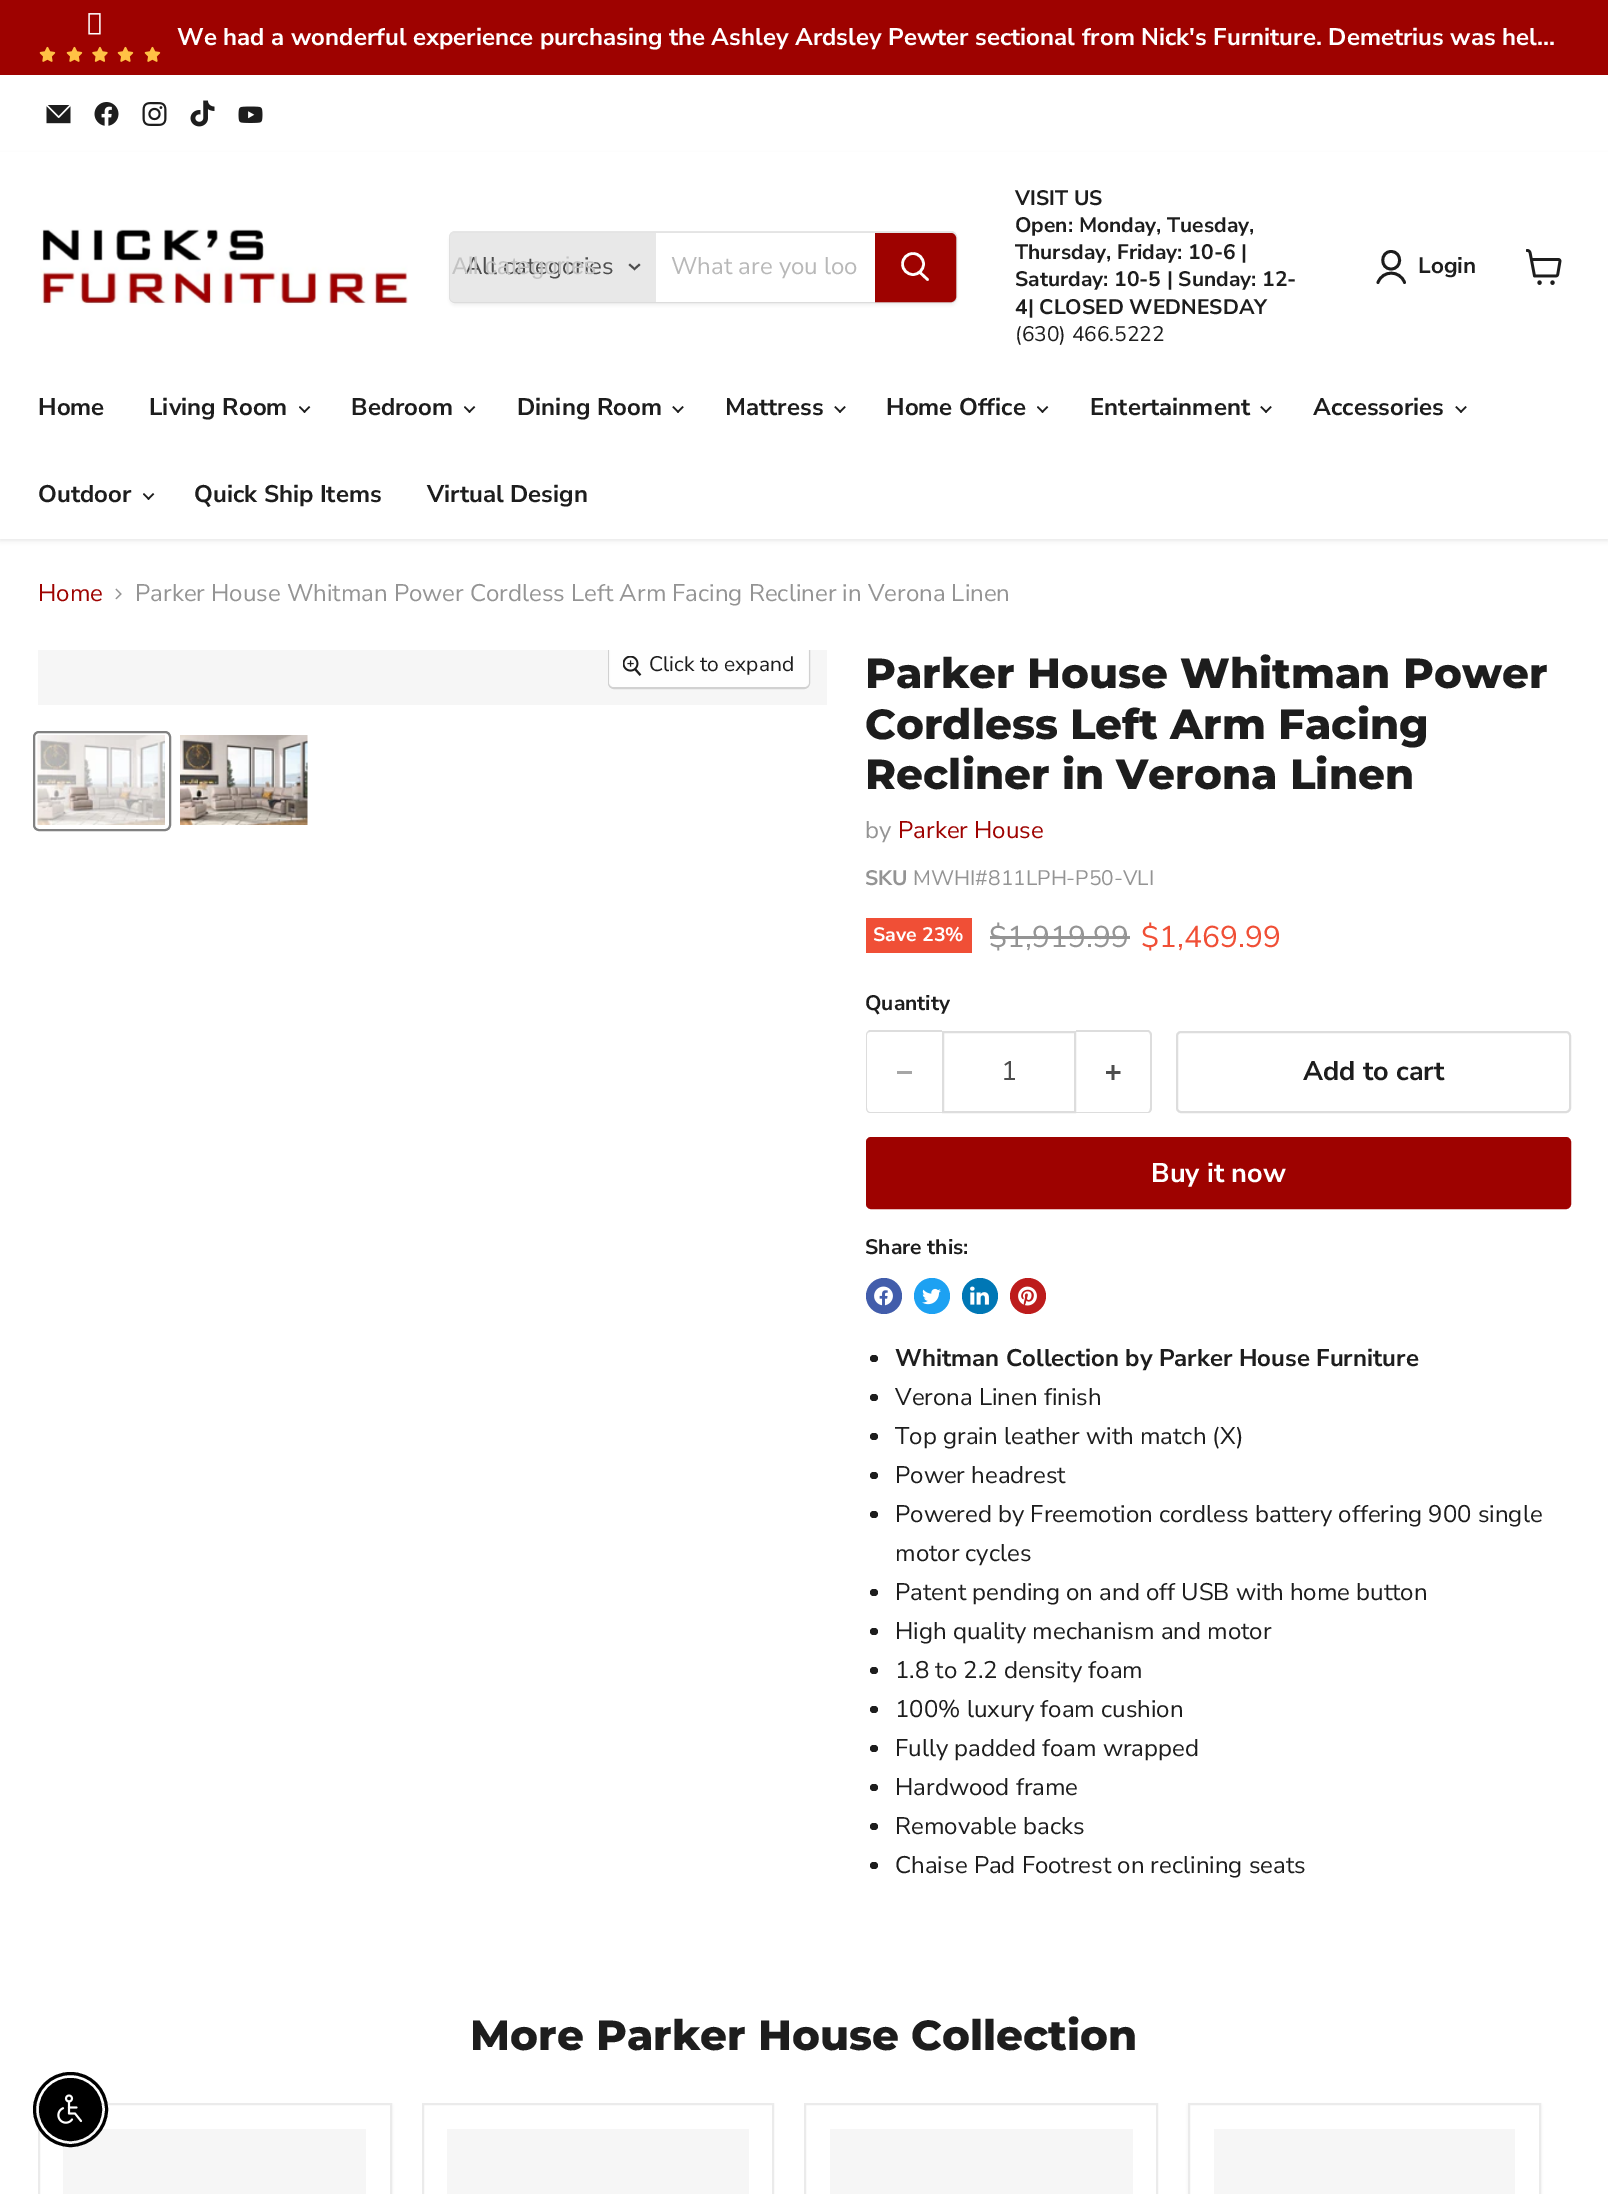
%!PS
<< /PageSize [1608 2194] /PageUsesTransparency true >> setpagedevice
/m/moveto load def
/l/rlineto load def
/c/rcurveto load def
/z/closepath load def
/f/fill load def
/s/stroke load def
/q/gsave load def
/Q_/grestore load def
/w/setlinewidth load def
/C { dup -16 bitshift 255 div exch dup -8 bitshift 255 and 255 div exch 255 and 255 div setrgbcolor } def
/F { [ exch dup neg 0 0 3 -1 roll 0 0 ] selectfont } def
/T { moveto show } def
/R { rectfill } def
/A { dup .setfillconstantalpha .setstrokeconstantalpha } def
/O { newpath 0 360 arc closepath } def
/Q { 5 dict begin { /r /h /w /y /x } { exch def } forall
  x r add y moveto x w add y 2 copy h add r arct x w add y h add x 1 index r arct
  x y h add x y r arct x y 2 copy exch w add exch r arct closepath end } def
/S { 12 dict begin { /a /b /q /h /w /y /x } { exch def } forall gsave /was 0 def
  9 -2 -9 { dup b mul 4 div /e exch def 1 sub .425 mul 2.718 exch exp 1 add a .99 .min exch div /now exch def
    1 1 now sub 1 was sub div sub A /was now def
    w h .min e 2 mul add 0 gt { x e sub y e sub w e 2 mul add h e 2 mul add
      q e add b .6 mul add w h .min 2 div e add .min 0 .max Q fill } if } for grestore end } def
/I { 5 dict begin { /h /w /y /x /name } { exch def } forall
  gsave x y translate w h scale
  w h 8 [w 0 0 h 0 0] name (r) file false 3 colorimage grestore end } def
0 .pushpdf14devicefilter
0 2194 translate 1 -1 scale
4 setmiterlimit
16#FFFFFF C
0 0 1608 2194 R
16#9E0200 C
0 0 1608 75 R
(1.rgb) 88 13 13 22 I
(2.rgb) 39 46 17 16 I
(2.rgb) 66 46 17 16 I
(3.rgb) 92 46 16 16 I
(2.rgb) 117 46 17 16 I
(2.rgb) 144 46 17 16 I
/NunitoSans-Bold 24 F
16#FFFFFF C
(We had a wonderful experience purchasing the Ashley Ardsley Pewter sectional from Nick's Furniture. Demetrius was hel...) 177 45 T
(4.rgb) 46 105 25 19 I
(5.rgb) 94 102 25 24 I
(6.rgb) 142 102 25 24 I
(7.rgb) 190 100 25 27 I
(8.rgb) 238 106 25 17 I
16#808080 C
0 156 1608 384 0 3 .25 S
16#FFFFFF C
0 152 1608 387 R
(9.rgb) 40 229 368 76 I
16#808080 C
449 234 508 72 6 2 .11 S
0.2 A
2 w
450 232 506 70 5 Q s
1 A
16#E8E8E8 C
455 233 m 201 0 l 0 69 l -201 0 l -3 0 -5 -2 -5 -5 c 0 -59 l 0 -3 2 -5 5 -5 c z f
/NunitoSans-Regular 24 F
16#4D4D4D C
(All categories) 465 274 T
/LiberationSans-Regular 24 F
16#C3C3C3 C
(All categories) 452 274 T
16#4D4D4D C
1.9 w
2 setlinecap
634.5 269 m 4.5 -4 l 634.5 269 m -4.5 -4 l s
16#FFFFFF C
656 233 219 69 R
/NunitoSans-Regular 24 F
16#B8B8B8 C
(What are you loo) 671 274 T
16#9E0200 C
876 234 m 75 0 l 2 0 4 2 4 4 c 0 59 l 0 2 -2 4 -4 4 c -75 0 l z q f Q_
2 w
0 setlinecap
s
16#FFFFFF C
2.6 w
1 setlinecap
927.5 279.5 m -7.5 -7 l s
0 setlinecap
913 264 10.5 O s
/NunitoSans-Bold 21 F
16#1D1D1D C
(VISIT US) 1015 205 T
(Open: Monday, Tuesday,) 1015 232 T
(Thursday, Friday: 10-6 |) 1015 259 T
(Saturday: 10-5 | Sunday: 12-) 1015 286 T
(4| CLOSED WEDNESDAY) 1015 314 T
/NunitoSans-Regular 21 F
(\(630\) 466.5222) 1015 341 T
2.8 w
1 setlinecap
1 setlinejoin
1391 269 m 11.5 0 11.5 -17.5 0 -17.5 c -11 0 -11 17.5 0 17.5 c z 1404.5 282.5 m -4.5 -12.5 -22 -12.5 -26.5 0 c s
/NunitoSans-Bold 22.5 F
(Login) 1418 273 T
(10.rgb) 1526 249 36 36 I
/NunitoSans-Bold 24 F
(Home) 38 415 T
(Living Room) 149 415 T
(11.rgb) 299 406 12 7 I
(Bedroom) 351 415 T
(11.rgb) 464 406 12 7 I
(Dining Room) 517 415 T
(12.rgb) 672 406 12 7 I
(Mattress) 725 415 T
(12.rgb) 834 406 12 7 I
(Home Office) 886 415 T
(11.rgb) 1037 406 12 7 I
(Entertainment) 1090 415 T
(12.rgb) 1260 406 12 7 I
(Accessories) 1313 415 T
(12.rgb) 1455 406 12 7 I
(Outdoor) 38 502 T
(11.rgb) 143 493 12 7 I
(Quick Ship Items) 194 502 T
(Virtual Design) 427 502 T
/NunitoSans-Regular 24 F
16#9E0200 C
(Home) 38 601 T
(13.rgb) 115 588 7 12 I
16#949494 C
(Parker House Whitman Power Cordless Left Arm Facing Recliner in Verona Linen) 135 601 T
16#F6F6F6 C
38 650 789 55 R
q
38 650 789 55 rectclip
16#D1D1D1 C
2 w
0 setlinecap
0 setlinejoin
609 645 200 43 5 Q s
Q_
0.9 A
16#FFFFFF C
609 650 m 200 0 l 0 32 l 0 3 -2 5 -5 5 c -190 0 l -3 0 -5 -2 -5 -5 c z f
1 A
(14.rgb) 623 656 19 20 I
/NunitoSans-Regular 21 F
16#1D1D1D C
(Click to expand) 649 671 T
16#818181 C
2 w
0 setlinecap
0 setlinejoin
34 732 136 98 5 Q s
(15.rgb) 37 735 128 90 I
(16.rgb) 180 735 128 90 I
/Montserrat-ExtraBold 42 F
16#1D1D1D C
(Parker House Whitman Power) 865 688 T
(Cordless Left Arm Facing) 865 739 T
(Recliner in Verona Linen) 865 789 T
/NunitoSans-Regular 24 F
16#949494 C
(by) 865 838 T
16#9E0200 C
(Parker House) 898 838 T
/NunitoSans-Bold 21 F
16#949494 C
(SKU) 865 885 T
/NunitoSans-Regular 21 F
(MWHI#811LPH-P50-VLI) 913 885 T
16#F04F36 C
866 918 106 35 R
/NunitoSans-Bold 19.5 F
16#FFFFFF C
(Save 23%) 873 941 T
/NunitoSans-Regular 30 F
16#949494 C
($1,919.99) 989 947 T
990 936 140 3 R
16#F04F36 C
($1,469.99) 1141 947 T
/NunitoSans-Bold 21 F
16#1D1D1D C
(Quantity) 865 1010 T
16#DDDDDD C
870 1030 m 72 0 l 0 83 l -72 0 l -2 0 -4 -2 -4 -5 c 0 -73 l 0 -2 2 -5 4 -5 c z 870 1032 m 72 0 l 0 80 l -72 0 l -2 0 -3 -2 -3 -4 c 0 -73 l 0 -2 1 -3 3 -3 c z eofill
16#A6A6A6 C
897 1071 15 3 R
16#DDDDDD C
943 1032 132 80 rectstroke
/NunitoSans-Regular 27 F
16#4D4D4D C
(1) 1001 1080 T
16#DDDDDD C
1076 1030 m 72 0 l 2 0 4 3 4 5 c 0 73 l 0 3 -2 5 -4 5 c -72 0 l z 1076 1032 m 72 0 l 1 0 2 1 2 3 c 0 73 l 0 2 -1 4 -2 4 c -72 0 l z eofill
(17.rgb) 1106 1065 15 15 I
1177 1032 393 80 4 Q s
/NunitoSans-Bold 27 F
16#1D1D1D C
(Add to cart) 1303 1080 T
16#9E0200 C
867 1138 703 70 4 Q q f Q_
s
16#FFFFFF C
(Buy it now) 1151 1182 T
/NunitoSans-Bold 21 F
16#1D1D1D C
(Share this:) 865 1254 T
16#425DAB C
884 1296 18 O f
(18.rgb) 874 1286 19 20 I
16#1DA1F2 C
932 1296 18 O f
(19.rgb) 922 1288 19 17 I
16#0077B5 C
980 1296 18 O f
(20.rgb) 970 1286 19 19 I
16#BD1C1C C
1028 1296 18 O f
(21.rgb) 1018 1286 19 20 I
16#1D1D1D C
870 1355 8 7 3.5 Q f
/NunitoSans-Bold 24 F
(Whitman Collection by Parker House Furniture) 895 1366 T
870 1394 8 7 3.5 Q f
/NunitoSans-Regular 24 F
(Verona Linen finish) 895 1405 T
870 1433 8 7 3.5 Q f
(Top grain leather with match \(X\)) 895 1444 T
870 1472 8 7 3.5 Q f
(Power headrest) 895 1483 T
870 1511 8 7 3.5 Q f
(Powered by Freemotion cordless battery offering 900 single) 895 1522 T
(motor cycles) 895 1561 T
870 1589 8 7 3.5 Q f
(Patent pending on and off USB with home button) 895 1600 T
870 1628 8 7 3.5 Q f
(High quality mechanism and motor) 895 1639 T
870 1667 8 7 3.5 Q f
(1.8 to 2.2 density foam) 895 1678 T
870 1706 8 7 3.5 Q f
(100% luxury foam cushion) 895 1717 T
870 1745 8 7 3.5 Q f
(Fully padded foam wrapped) 895 1756 T
870 1784 8 7 3.5 Q f
(Hardwood frame) 895 1795 T
870 1823 8 7 3.5 Q f
(Removable backs) 895 1834 T
870 1862 8 7 3.5 Q f
(Chaise Pad Footrest on reclining seats) 895 1873 T
/Montserrat-ExtraBold 42 F
(More Parker House Collection) 470 2050 T
q
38 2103 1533 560 rectclip
16#808080 C
38 2105 354 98 0 3 .11 S
Q_
16#FFFFFF C
39 2104 m 352 0 l 0 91 l -352 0 l z q f Q_
16#EBEBEB C
s
16#F6F6F6 C
63 2129 303 65 R
16#EBEBEB C
423 2104 350 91 rectstroke
16#F6F6F6 C
447 2129 302 65 R
16#EBEBEB C
805 2104 352 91 rectstroke
16#F6F6F6 C
830 2129 303 65 R
16#808080 C
1188 2105 353 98 0 3 .11 S
16#FFFFFF C
1189 2104 m 351 0 l 0 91 l -351 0 l z q f Q_
16#EBEBEB C
s
16#F6F6F6 C
1214 2129 301 65 R
16#000000 C
3 w
70.5 2109.5 36 O s
70.5 2109.5 30.5 O q f Q_
2 w
s
(22.rgb) 57 2094 26 30 I
.poppdf14devicefilter showpage
